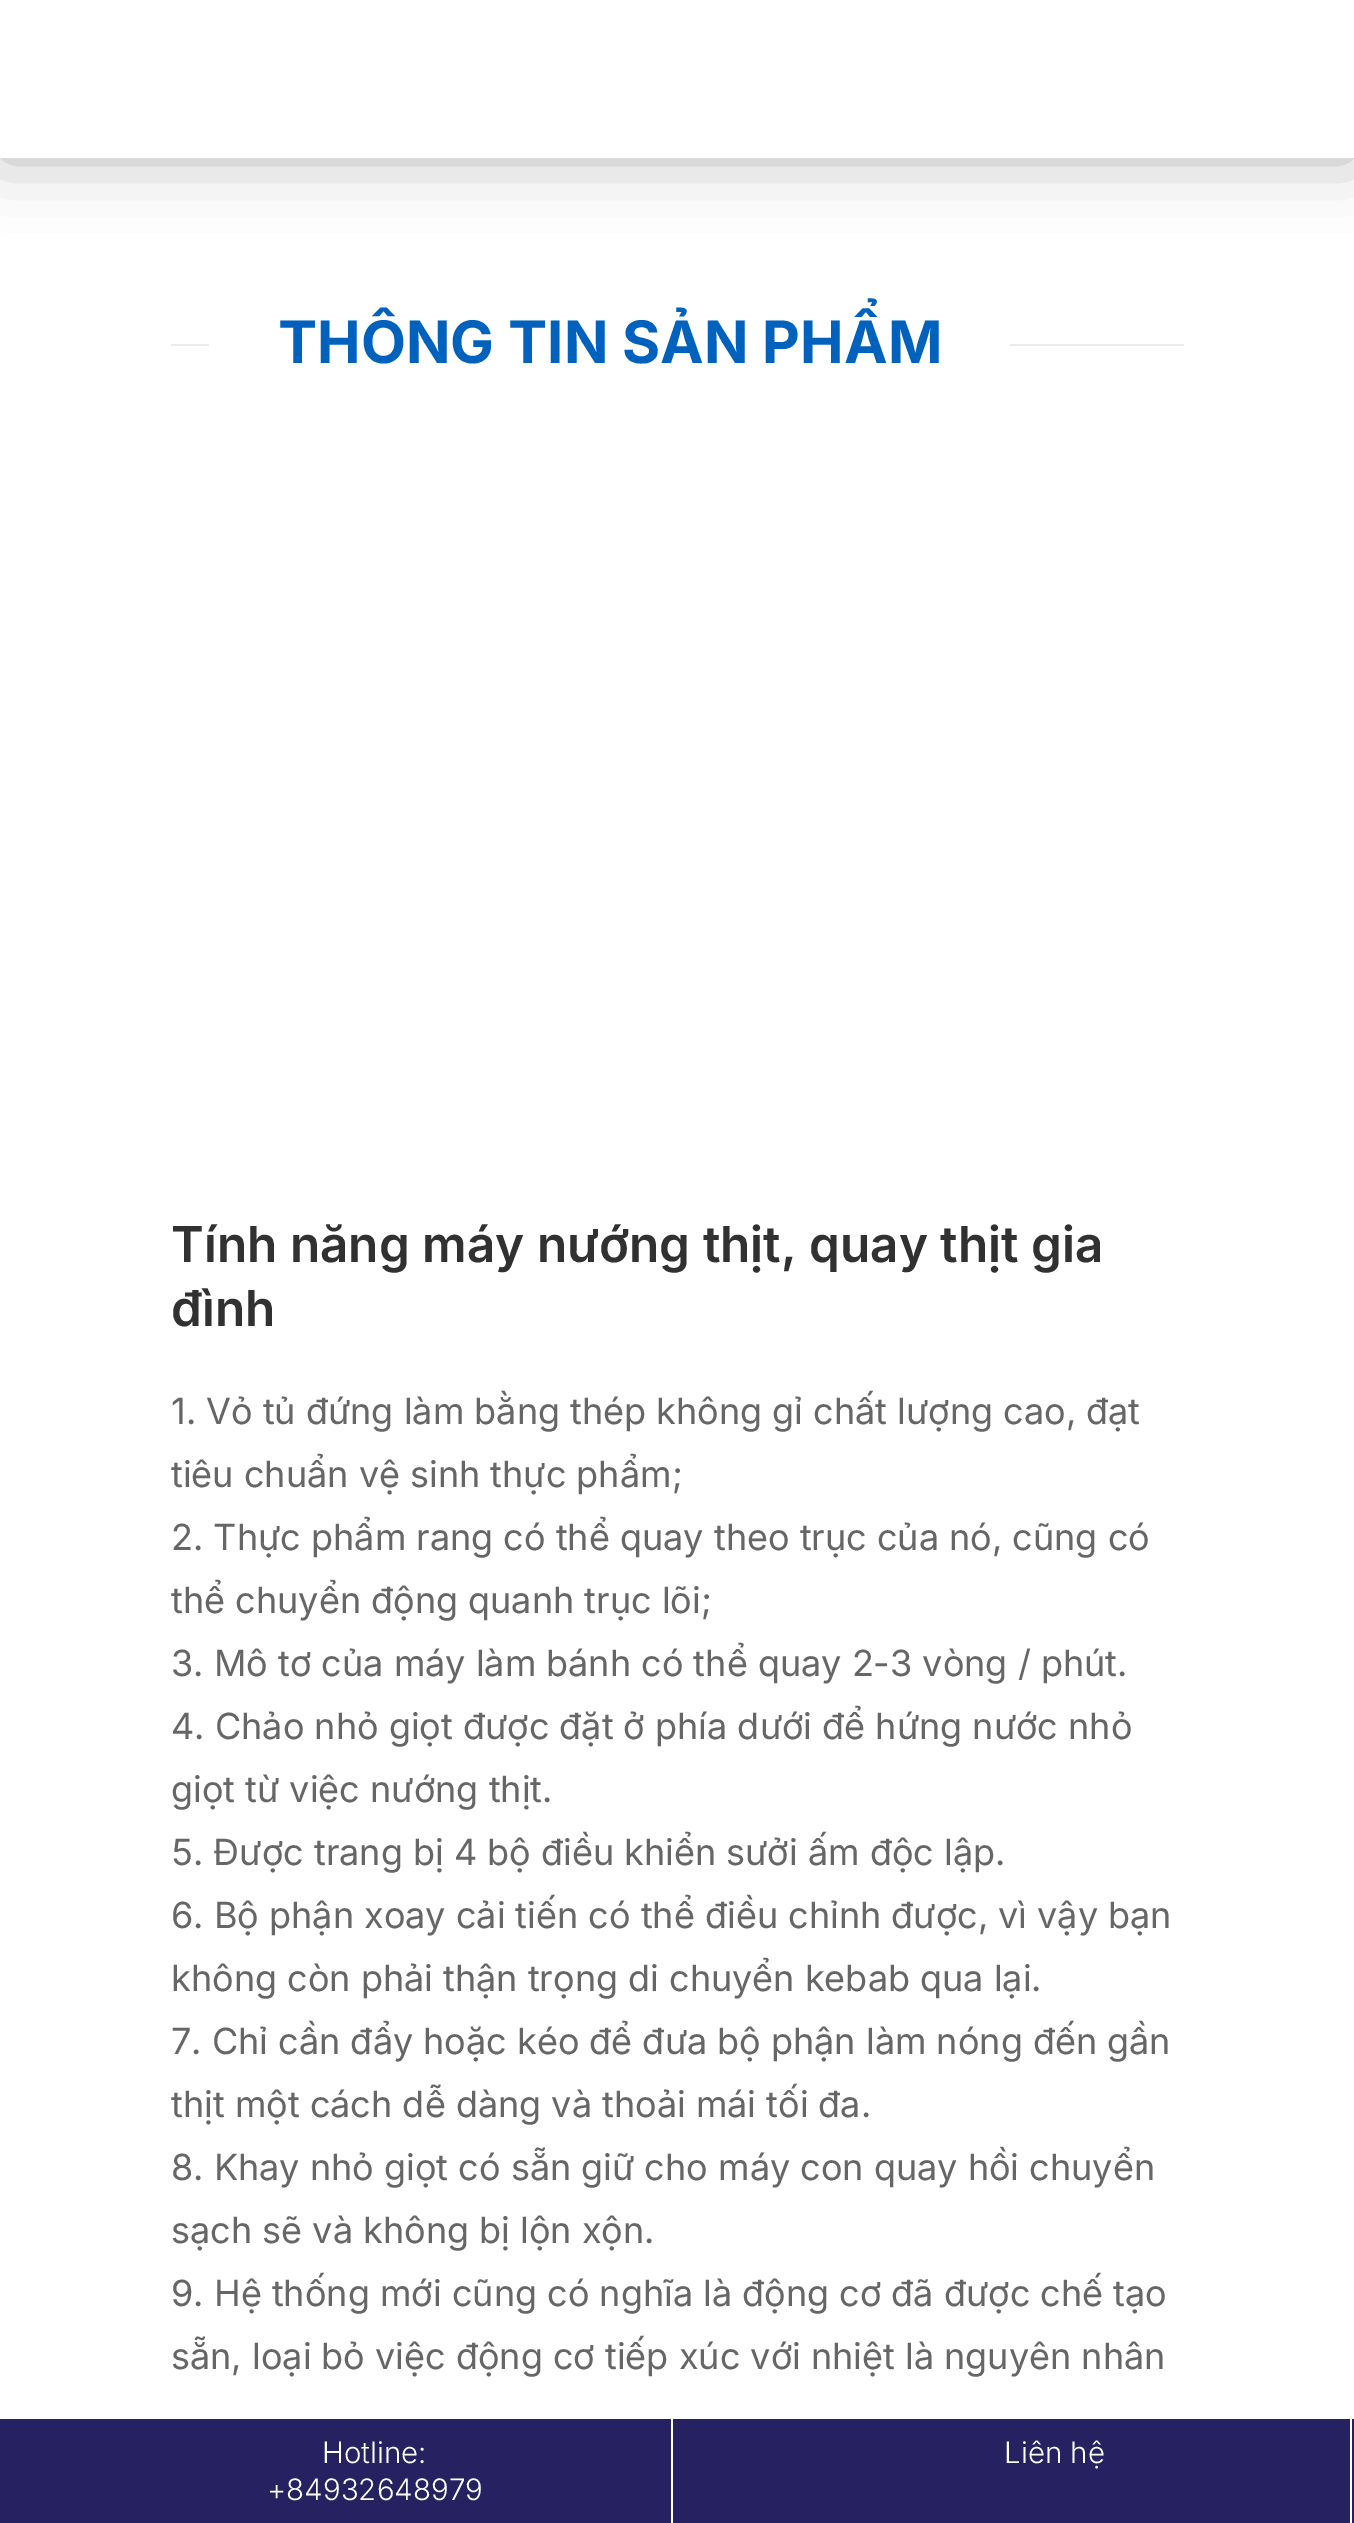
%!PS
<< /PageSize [1354 2523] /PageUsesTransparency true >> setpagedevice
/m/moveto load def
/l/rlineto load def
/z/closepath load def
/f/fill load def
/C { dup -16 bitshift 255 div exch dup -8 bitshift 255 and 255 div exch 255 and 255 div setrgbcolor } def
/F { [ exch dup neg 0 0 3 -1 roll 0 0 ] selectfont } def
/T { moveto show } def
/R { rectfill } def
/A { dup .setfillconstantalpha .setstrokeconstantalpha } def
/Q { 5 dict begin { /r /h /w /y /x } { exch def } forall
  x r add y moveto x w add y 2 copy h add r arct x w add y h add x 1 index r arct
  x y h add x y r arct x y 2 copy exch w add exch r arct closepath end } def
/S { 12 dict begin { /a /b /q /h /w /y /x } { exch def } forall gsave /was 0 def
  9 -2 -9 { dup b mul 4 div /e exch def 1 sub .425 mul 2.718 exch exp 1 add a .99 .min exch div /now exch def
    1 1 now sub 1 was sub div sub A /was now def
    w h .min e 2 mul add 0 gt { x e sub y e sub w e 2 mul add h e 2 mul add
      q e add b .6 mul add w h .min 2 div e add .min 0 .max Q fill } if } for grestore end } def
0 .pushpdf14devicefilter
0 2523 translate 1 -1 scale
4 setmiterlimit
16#FFFFFF C
0 0 1354 2523 R
16#000000 C
0 0 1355 158 0 34 .3 S
16#FFFFFF C
0 0 1354 158 R
16#EBEBEB C
171 344 1013 2 R
16#FFFFFF C
209 344 801 2 R
/Inter-Bold 58.5 F
16#0062BC C
(THÔNG TIN SẢN PHẨM) 278 363 T
/Inter-SemiBold 49.5 F
16#313131 C
(Tính năng máy nướng thịt, quay thịt gia) 171 1262 T
(đình) 171 1326 T
/Inter-Regular 36 F
16#666666 C
(1. Vỏ tủ đứng làm bằng thép không gỉ chất lượng cao, đạt) 171 1424 T
(tiêu chuẩn vệ sinh thực phẩm;) 171 1487 T
(2. Thực phẩm rang có thể quay theo trục của nó, cũng có) 171 1550 T
(thể chuyển động quanh trục lõi;) 171 1613 T
(3. Mô tơ của máy làm bánh có thể quay 2-3 vòng / phút.) 171 1676 T
(4. Chảo nhỏ giọt được đặt ở phía dưới để hứng nước nhỏ) 171 1739 T
(giọt từ việc nướng thịt.) 171 1802 T
(5. Được trang bị 4 bộ điều khiển sưởi ấm độc lập.) 171 1865 T
(6. Bộ phận xoay cải tiến có thể điều chỉnh được, vì vậy bạn) 171 1928 T
(không còn phải thận trọng di chuyển kebab qua lại.) 171 1991 T
(7. Chỉ cần đẩy hoặc kéo để đưa bộ phận làm nóng đến gần) 171 2054 T
(thịt một cách dễ dàng và thoải mái tối đa.) 171 2117 T
(8. Khay nhỏ giọt có sẵn giữ cho máy con quay hồi chuyển) 171 2180 T
(sạch sẽ và không bị lộn xộn.) 171 2243 T
(9. Hệ thống mới cũng có nghĩa là động cơ đã được chế tạo) 171 2306 T
(sẵn, loại bỏ việc động cơ tiếp xúc với nhiệt là nguyên nhân) 171 2369 T
16#262261 C
673 2419 681 104 R
0 2419 671 104 R
/Inter-Light 29.5 F
16#FFFFFF C
(Hotline:) 322 2463 T
(+84932648979) 267 2500 T
682 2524 m 0 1 l 670 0 l 0 -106 l -2 0 l 0 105 l z f
(Liên hệ) 1004 2463 T
.poppdf14devicefilter showpage
